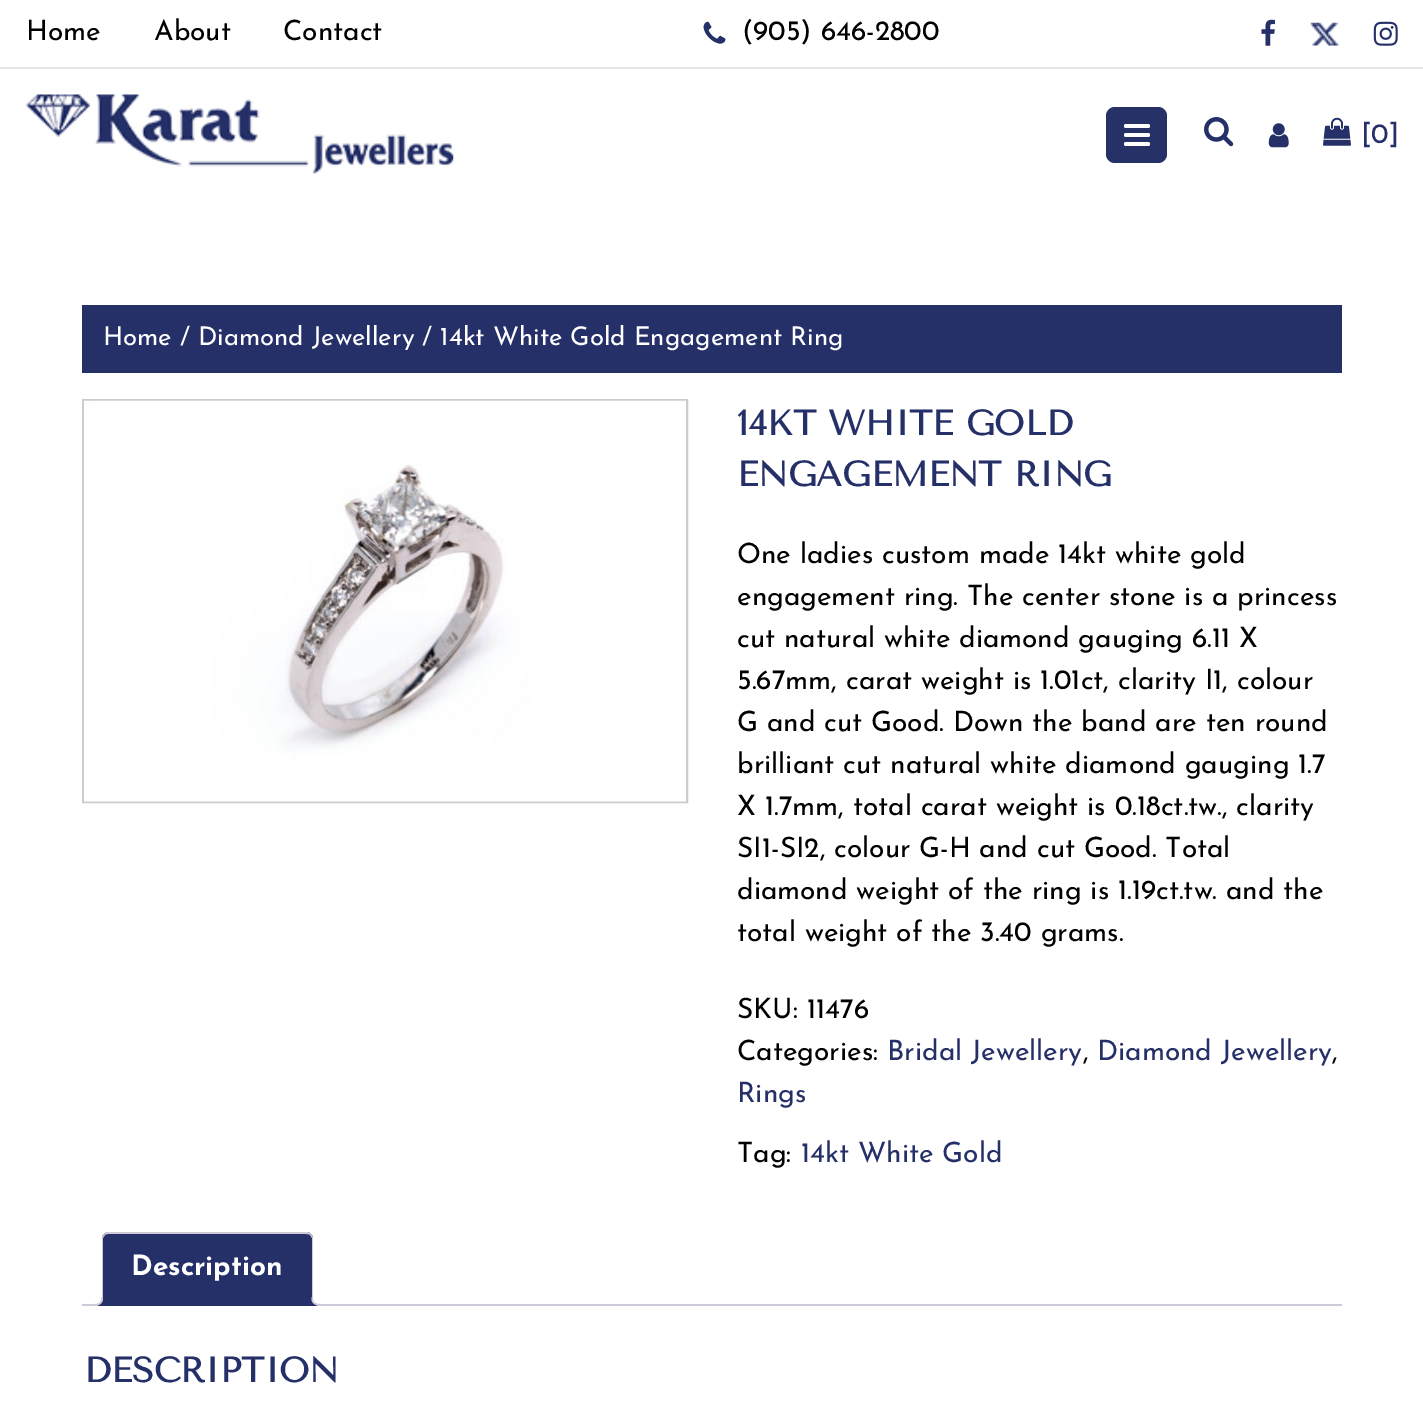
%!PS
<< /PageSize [1423 1418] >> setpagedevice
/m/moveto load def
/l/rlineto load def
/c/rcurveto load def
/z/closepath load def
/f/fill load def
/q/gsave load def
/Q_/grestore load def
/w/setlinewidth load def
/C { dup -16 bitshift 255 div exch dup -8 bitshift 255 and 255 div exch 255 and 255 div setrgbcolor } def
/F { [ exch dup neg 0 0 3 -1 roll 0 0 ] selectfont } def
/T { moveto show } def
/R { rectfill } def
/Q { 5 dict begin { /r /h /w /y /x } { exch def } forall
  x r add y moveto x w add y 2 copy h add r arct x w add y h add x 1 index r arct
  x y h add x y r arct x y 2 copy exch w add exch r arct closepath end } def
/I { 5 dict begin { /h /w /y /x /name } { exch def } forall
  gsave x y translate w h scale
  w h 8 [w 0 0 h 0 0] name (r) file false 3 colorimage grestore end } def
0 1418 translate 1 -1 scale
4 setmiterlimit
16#FFFFFF C
0 0 1423 1418 R
16#E5E5E5 C
0 67 1423 2 R
/JosefinSans-Regular 28 F
16#000000 C
(Home) 26 40 T
(About) 154 40 T
(Contact) 283 40 T
(1.rgb) 703 21 23 23 I
(\(905\) 646-2800) 742 40 T
(2.rgb) 1261 19 14 27 I
(3.rgb) 1310 22 29 24 I
(4.rgb) 1373 21 25 25 I
(5.rgb) 26 94 428 80 I
16#263168 C
1106 107 61 56 9 Q f
16#FFFFFF C
1124 124 26 4 2 Q f
1124 133 26 4 2 Q f
1124 142 26 4 2 Q f
(6.rgb) 1204 117 30 30 I
(7.rgb) 1268 123 21 25 I
(8.rgb) 1323 117 28 29 I
16#253068 C
([0]) 1361 143 T
16#252F68 C
82 305 1260 68 R
/JosefinSans-Regular 25.75 F
16#FFFFFF C
(Home / Diamond Jewellery / 14kt White Gold Engagement Ring) 103 345 T
16#CCCCCC C
2 w
83 400 604 402 rectstroke
(9.rgb) 84 400 602 402 I
/TenorSans-Bold 35 F
16#253068 C
(14KT WHITE GOLD) 737 435 T
(ENGAGEMENT RING) 737 486 T
/JosefinSans-Regular 28 F
16#000000 C
(One ladies custom made 14kt white gold) 737 563 T
(engagement ring. The center stone is a princess) 737 605 T
(cut natural white diamond gauging 6.11 X) 737 647 T
(5.67mm, carat weight is 1.01ct, clarity I1, colour) 737 689 T
(G and cut Good. Down the band are ten round) 737 731 T
(brilliant cut natural white diamond gauging 1.7) 737 773 T
(X 1.7mm, total carat weight is 0.18ct.tw., clarity) 737 815 T
(SI1-SI2, colour G-H and cut Good. Total) 737 857 T
(diamond weight of the ring is 1.19ct.tw. and the) 737 899 T
(total weight of the 3.40 grams.) 737 941 T
(SKU: 11476) 737 1018 T
(Categories:) 737 1060 T
16#253068 C
(Bridal Jewellery) 887 1060 T
16#000000 C
(,) 1083 1060 T
16#253068 C
(Diamond Jewellery) 1097 1060 T
16#000000 C
(,) 1332 1060 T
16#253068 C
(Rings) 737 1102 T
16#000000 C
(Tag:) 737 1162 T
16#253068 C
(14kt White Gold) 801 1162 T
16#CFC8D8 C
82 1304 1260 2 R
16#252F68 C
109 1232 m 197 0 l 4 0 7 3 7 7 c 0 67 l -211 0 l 0 -67 l 0 -4 3 -7 7 -7 c z f
16#CFC8D8 C
108 1232 m -2 0 -3 1 -4 2 c 1 1 l 1 -1 2 -1 3 -1 c 198 0 l 1 0 3 0 4 1 c 1 -1 l -1 -1 -3 -2 -5 -2 c z f
311 1234 m 1 1 2 3 2 5 c 0 66 l -1 -1 l 0 -66 l -2 -3 l z f
16#252F68 C
102 1306 m 1 -2 l 209 0 l 1 1 l z f
16#CFC8D8 C
104 1234 m -1 1 -2 3 -2 5 c 0 66 l 1 -1 l 0 -66 l 2 -3 l z f
/JosefinSans-Bold 28 F
16#FFFFFF C
(Description) 131 1275 T
q
82 1232 1260 74 rectclip
16#252F68 C
98 1305.5 m 0 3.5 l 6.5 0 9 -2.5 9 -9 c -4 0 l -.5 2.5 -2.5 4.5 -5 5.5 c z f
Q_
16#CFC8D8 C
94.5 1297 m 8.5 0 l 0 6 -2.5 8.5 -8.5 8.5 c z 94.5 1297 m 7 0 l 0 5 -2 7 -7 7 c z eofill
q
82 1232 1260 74 rectclip
16#252F68 C
308 1300 m 0 6.5 2.5 9 9 9 c 0 -3.5 l -2.5 -.5 -5 -3 -5.5 -5.5 c z f
Q_
311.5 1297 m 8.5 0 l 0 8.5 l -4 0 -8.5 -1.5 -8.5 -7 c z 313 1297 m 7 0 l 0 7 l -3 0 -7 -1 -7 -5.5 c z eofill
/TenorSans-Bold 35 F
16#253068 C
(DESCRIPTION) 84 1382 T
showpage
